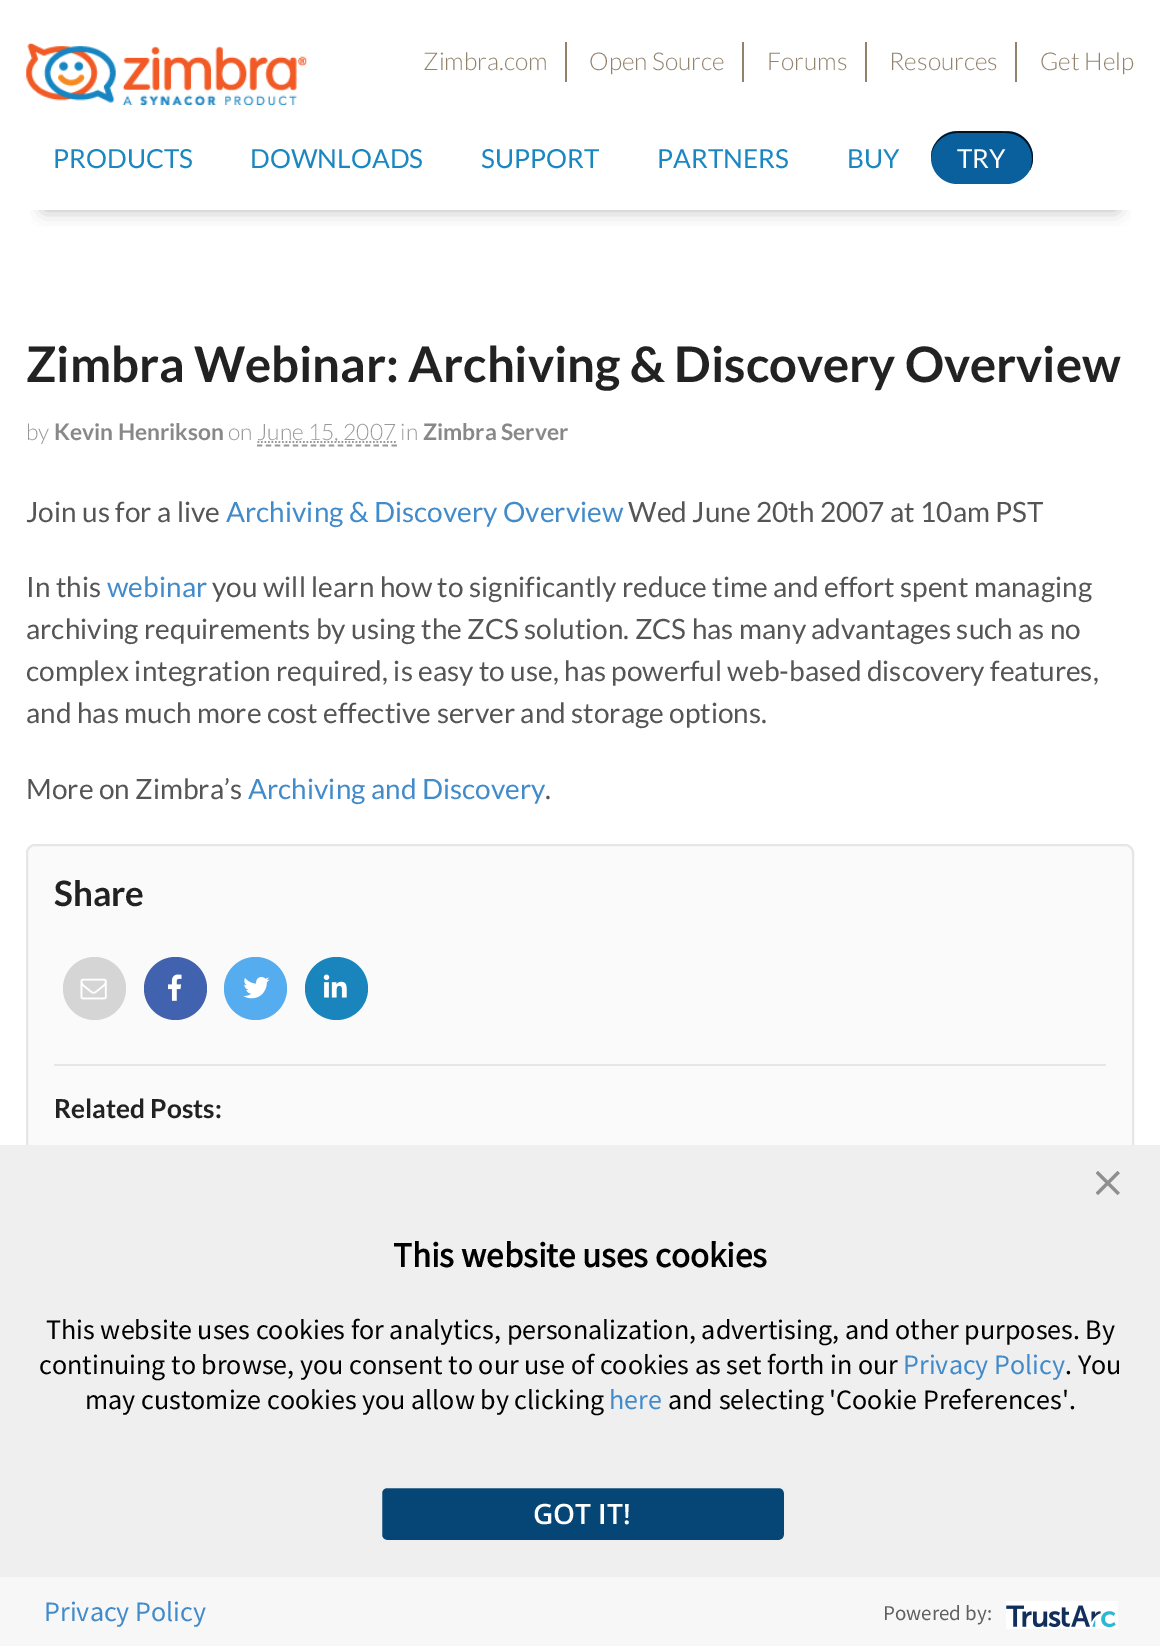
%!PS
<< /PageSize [1160 1646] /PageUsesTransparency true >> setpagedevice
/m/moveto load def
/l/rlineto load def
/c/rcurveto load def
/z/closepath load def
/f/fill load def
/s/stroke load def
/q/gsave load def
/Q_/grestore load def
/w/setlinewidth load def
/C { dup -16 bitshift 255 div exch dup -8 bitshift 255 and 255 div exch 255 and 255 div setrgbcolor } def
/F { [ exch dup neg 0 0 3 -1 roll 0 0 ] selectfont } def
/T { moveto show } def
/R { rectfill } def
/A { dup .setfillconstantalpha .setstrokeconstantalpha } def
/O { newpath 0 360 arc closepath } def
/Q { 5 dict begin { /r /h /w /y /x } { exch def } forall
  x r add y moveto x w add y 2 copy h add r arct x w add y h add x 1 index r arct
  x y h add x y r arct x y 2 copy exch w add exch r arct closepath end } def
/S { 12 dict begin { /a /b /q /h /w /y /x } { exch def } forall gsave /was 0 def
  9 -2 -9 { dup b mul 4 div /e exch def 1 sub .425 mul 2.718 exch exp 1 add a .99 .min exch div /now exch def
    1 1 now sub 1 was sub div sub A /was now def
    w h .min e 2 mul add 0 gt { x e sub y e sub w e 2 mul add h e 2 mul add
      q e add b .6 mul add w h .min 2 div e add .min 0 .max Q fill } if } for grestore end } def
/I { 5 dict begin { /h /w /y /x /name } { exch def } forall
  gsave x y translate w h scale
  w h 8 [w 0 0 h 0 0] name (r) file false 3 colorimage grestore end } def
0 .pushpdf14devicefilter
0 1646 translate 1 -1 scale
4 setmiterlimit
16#FFFFFF C
0 0 1160 1646 R
q
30 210 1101 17 rectclip
16#91908E C
44 70 1073 140 0 9 .65 S
Q_
(1.rgb) 26 43 281 62 I
16#92826C C
565 42 2 40 R
/Lato-Light 24.5 F
(Zimbra.com) 423 70 T
742 42 2 40 R
(Open Source) 589 70 T
865 42 2 40 R
(Forums) 767 70 T
1015 42 2 40 R
(Resources) 889 70 T
(Get Help) 1040 70 T
/Lato-Regular 26.25 F
16#1A87C0 C
(PRODUCTS) 53 168 T
(DOWNLOADS) 250 168 T
(SUPPORT) 481 168 T
(PARTNERS) 657 168 T
(BUY) 847 168 T
16#0A609C C
931 131 102 53 26.5 Q f
0.8 A
16#000000 C
957 133 m 49 0 l 15 0 26 12 26 26 c 0 4 -1 8 -2 11 c 8 -15 -1 -35 -18 -38 c -14 -1 l -32 0 l -13 0 -23 1 -30 12 c -4 4 -5 10 -5 15 c 0 -13 12 -25 26 -25 c z f
1 A
16#FFFFFF C
(TRY) 957 168 T
/Lato-Bold 49 F
16#222222 C
(Zimbra Webinar: Archiving & Discovery Overview) 26 382 T
/Lato-Light 22.75 F
16#999999 C
(by) 26 440 T
/Lato-Bold 22.75 F
16#888888 C
(Kevin Henrikson) 54 440 T
/Lato-Light 22.75 F
16#999999 C
(on) 228 440 T
1.8 w
[1.75 1.75] 0 setdash
257.5 442 m 139 0 l s
(June 15, 2007 in) 257 440 T
[5.25 3.73] 0 setdash
257 445.5 m 140 0 l s
/Lato-Bold 22.75 F
16#888888 C
(Zimbra Server) 423 440 T
/Lato-Regular 28 F
16#555555 C
(Join us for a live) 26 522 T
16#428BCA C
(Archiving & Discovery Overview) 226 522 T
16#555555 C
(Wed June 20th 2007 at 10am PST) 628 522 T
(In this) 26 597 T
16#428BCA C
(webinar) 107 597 T
16#555555 C
(you will learn how to significantly reduce time and effort spent managing) 212 597 T
(archiving requirements by using the ZCS solution. ZCS has many advantages such as no) 26 639 T
(complex integration required, is easy to use, has powerful web-based discovery features,) 26 681 T
(and has much more cost effective server and storage options.) 26 723 T
(More on Zimbra’s) 26 799 T
16#428BCA C
(Archiving and Discovery) 248 799 T
16#555555 C
(.) 545 799 T
16#FAFAFA C
27 845 1106 516 8 Q q f Q_
16#E6E6E6 C
2 w
[] 0 setdash
s
/Lato-Bold 35 F
16#222222 C
(Share) 54 906 T
16#D5D5D5 C
94.5 988.5 31.5 O f
(2.rgb) 80 978 27 22 I
16#4163AF C
175.5 988.5 31.5 O f
(3.rgb) 168 974 14 27 I
16#55ACEE C
255.5 988.5 31.5 O f
(4.rgb) 243 977 27 22 I
16#1985BC C
336.5 988.5 31.5 O f
(5.rgb) 323 974 24 24 I
16#E6E6E6 C
54 1064 1052 2 R
/Lato-Bold 26.25 F
16#222222 C
(Related Posts:) 54 1118 T
16#EFEFEF C
0 1145 1160 432 R
(6.rgb) 1096 1171 24 24 I
/SourceSansPro-Bold 35 F
16#000000 C
(This website uses cookies) 393 1267 T
/SourceSansPro-Regular 28 F
(This website uses cookies for analytics, personalization, advertising, and other purposes. By) 46 1339 T
(continuing to browse, you consent to our use of cookies as set forth in our) 39 1374 T
16#428BCA C
(Privacy Policy) 903 1374 T
16#000000 C
(. You) 1065 1374 T
(may customize cookies you allow by clicking) 85 1409 T
16#428BCA C
(here) 609 1409 T
16#000000 C
(and selecting 'Cookie Preferences'.) 668 1409 T
16#064676 C
381 1487 404 54 6 Q q f Q_
16#EEEEEE C
s
/OpenSans-SemiBold 28 F
16#FFFFFF C
(GOT IT!) 533 1524 T
16#F7F7F7 C
0 1577 1160 69 R
/SourceSansPro-Regular 28 F
16#428BCA C
(Privacy Policy) 44 1621 T
/SourceSansPro-Regular 21 F
16#5F6062 C
(Powered by:) 883 1620 T
(7.rgb) 1006 1601 112 28 I
.poppdf14devicefilter showpage
